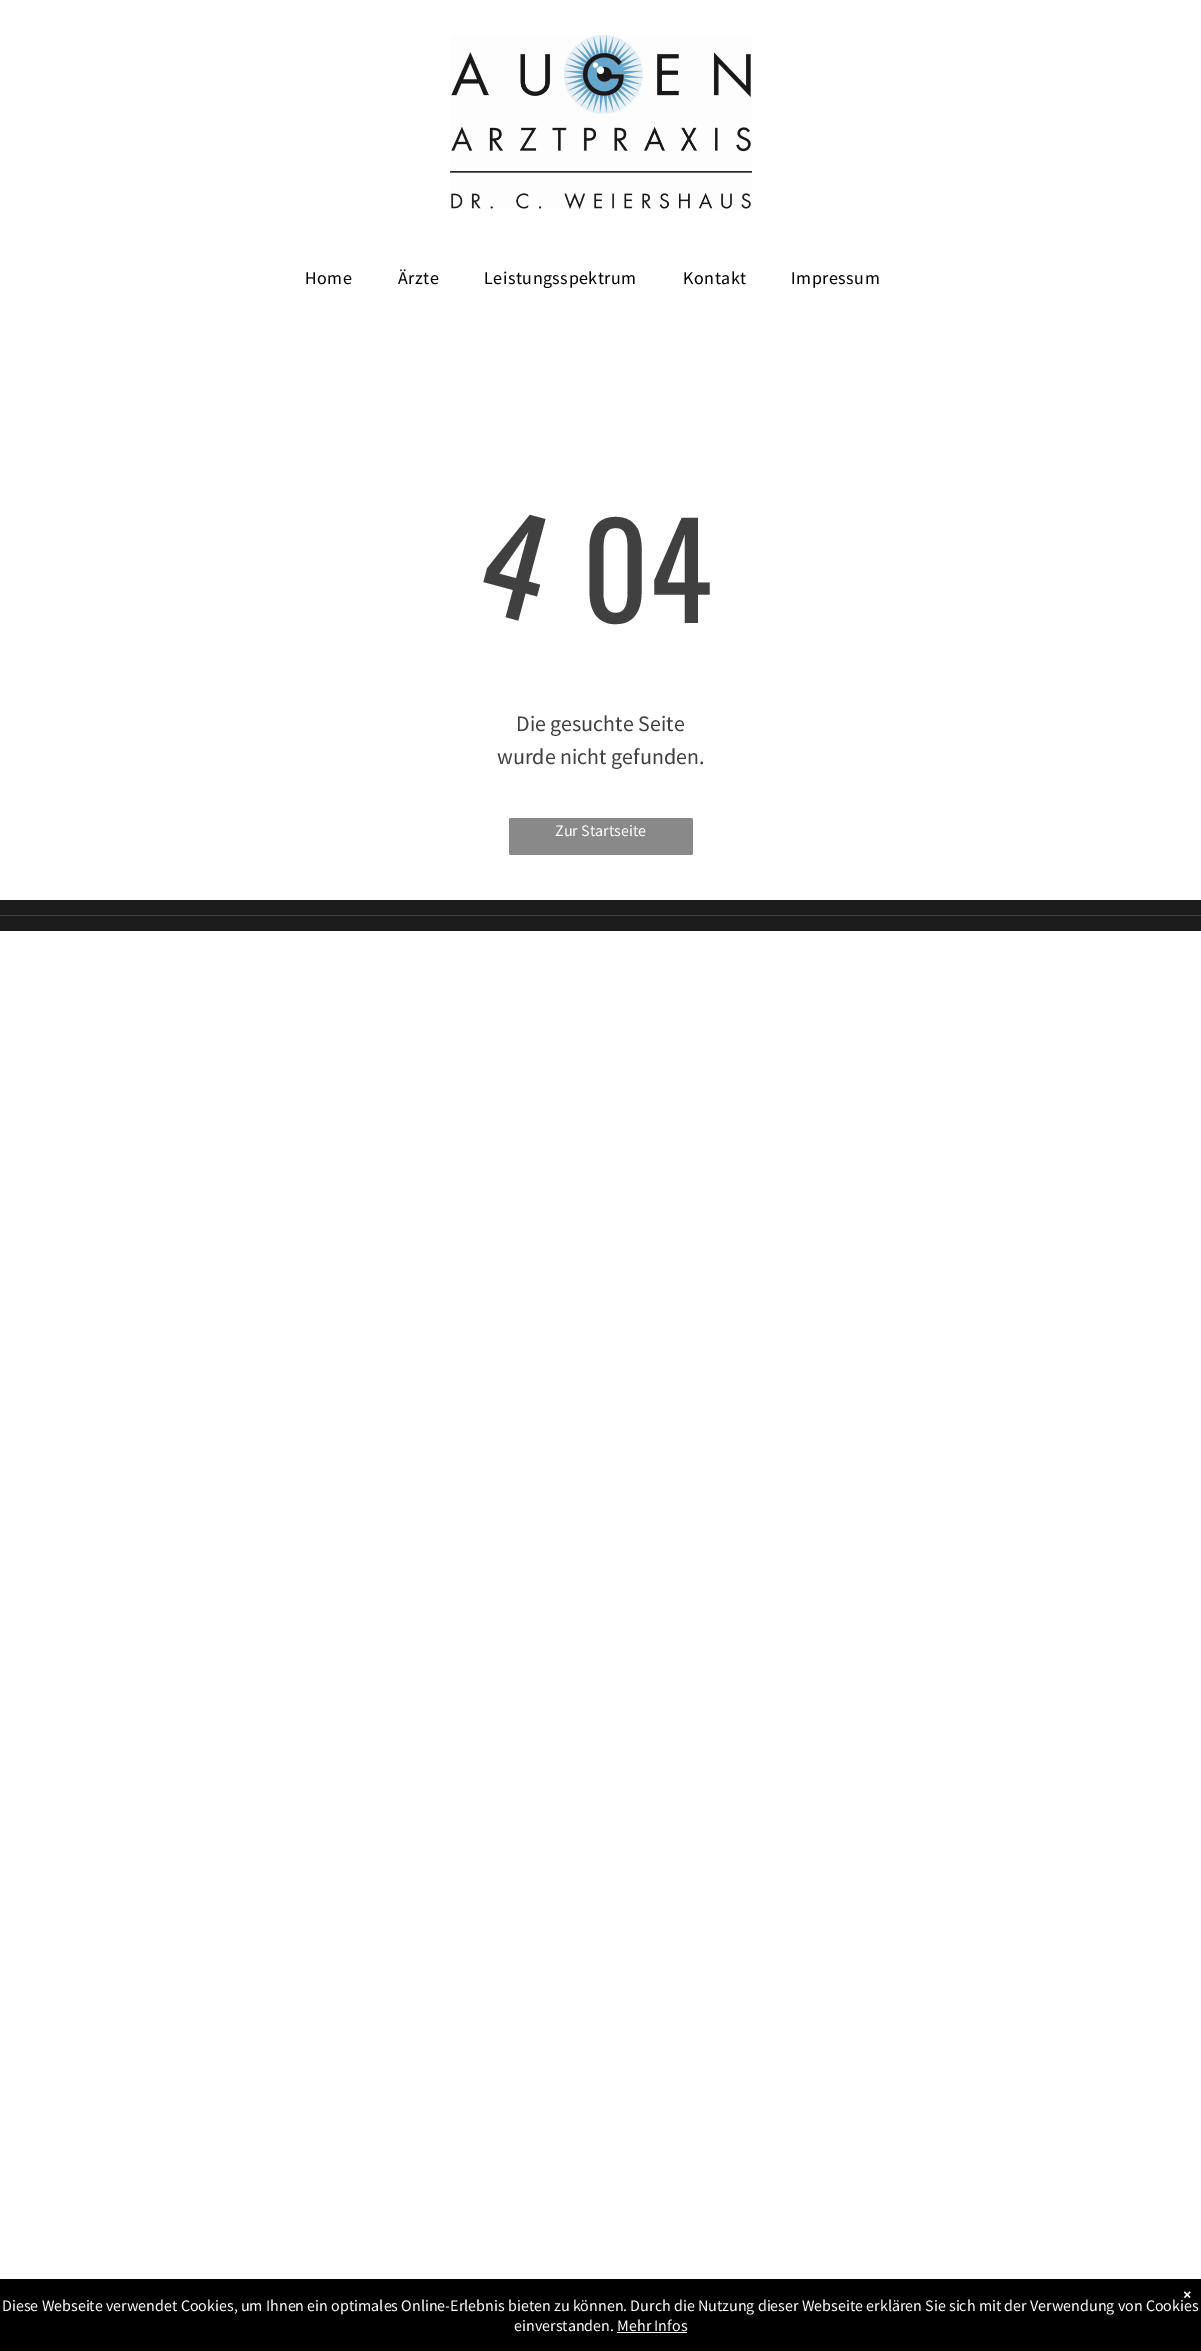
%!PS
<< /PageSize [1201 2351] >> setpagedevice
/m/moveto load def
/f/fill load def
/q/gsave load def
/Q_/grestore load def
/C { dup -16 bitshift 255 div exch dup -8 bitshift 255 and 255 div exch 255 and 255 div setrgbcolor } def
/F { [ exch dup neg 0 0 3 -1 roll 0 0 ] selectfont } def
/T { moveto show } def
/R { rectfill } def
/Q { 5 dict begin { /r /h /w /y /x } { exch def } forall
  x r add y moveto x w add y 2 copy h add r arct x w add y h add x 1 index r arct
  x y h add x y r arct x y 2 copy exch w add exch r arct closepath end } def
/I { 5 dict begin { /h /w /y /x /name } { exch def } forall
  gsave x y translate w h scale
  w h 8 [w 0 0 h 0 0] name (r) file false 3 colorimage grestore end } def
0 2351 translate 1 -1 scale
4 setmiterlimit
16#FFFFFF C
0 0 1201 2351 R
(1.rgb) 450 35 302 174 I
/SourceSansPro-Regular 18 F
16#000000 C
305 284 m .5 0 (Home) ashow
398 284 m .5 0 (Ärzte) ashow
484 284 m .5 0 (Leistungsspektrum) ashow
683 284 m .5 0 (Kontakt) ashow
791 284 m .5 0 (Impressum) ashow
/Oswald-Regular 130 F
16#404040 C
q 471 608 translate 15 rotate 0 0 m (4) show Q_
(04) 582 623 T
/SourceSansPro-Regular 22 F
(Die gesuchte Seite) 516 731 T
(wurde nicht gefunden.) 497 764 T
16#898989 C
509 818 184 37 2 Q f
/SourceSansPro-Regular 16 F
16#FFFFFF C
(Zur Startseite) 555 836 T
16#1C1C1C C
0 900 1201 31 R
16#414141 C
0 915 1201 1 R
16#000000 C
0 2279 1201 72 R
/SourceSansPro-Bold 16 F
16#FFFFFF C
(×) 1183 2300 T
/SourceSansPro-Regular 16 F
(Diese Webseite verwendet Cookies, um Ihnen ein optimales Online-Erlebnis bieten zu können. Durch die Nutzung dieser Webseite erklären Sie sich mit der Verwendung von Cookies) 2 2311 T
(einverstanden. Mehr Infos) 514 2331 T
617 2332 70 1 R
showpage
